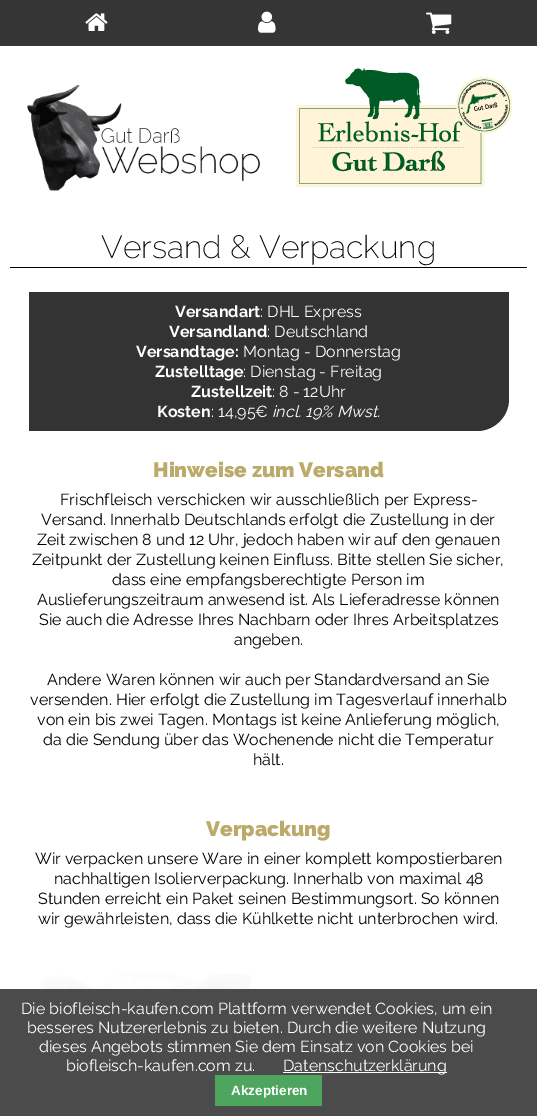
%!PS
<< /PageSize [537 1116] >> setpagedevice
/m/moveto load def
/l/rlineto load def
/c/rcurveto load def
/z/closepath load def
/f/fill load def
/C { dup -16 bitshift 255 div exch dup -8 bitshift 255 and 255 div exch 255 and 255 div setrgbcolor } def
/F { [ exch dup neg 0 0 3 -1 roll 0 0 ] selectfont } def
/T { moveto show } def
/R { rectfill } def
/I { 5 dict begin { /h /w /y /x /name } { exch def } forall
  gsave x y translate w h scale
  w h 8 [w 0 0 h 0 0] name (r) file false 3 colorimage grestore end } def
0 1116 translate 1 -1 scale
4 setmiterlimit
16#FFFFFF C
0 0 537 1116 R
(1.rgb) 0 973 263 16 I
16#353535 C
0 0 537 46 R
(2.rgb) 85 13 23 18 I
(3.rgb) 258 11 18 22 I
(4.rgb) 426 12 26 22 I
(5.rgb) 27 84 233 107 I
(6.rgb) 296 68 216 119 I
16#000000 C
10 267 517 1 R
/Raleway-Thin 32 F
(Versand & Verpackung) 101 258 T
16#333333 C
29 292 m 480 0 l 0 107 l 0 17.5 -14.5 32 -32 32 c -448 0 l z f
/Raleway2-Thin 16 F
16#FFFFFF C
(Versandart) 175 317 T
/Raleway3-Thin 16 F
(: DHL Express) 260 317 T
/Raleway2-Thin 16 F
(Versandland) 169 337 T
/Raleway3-Thin 16 F
(: Deutschland) 267 337 T
/Raleway2-Thin 16 F
(Versandtage:) 136 357 T
/Raleway3-Thin 16 F
(Montag - Donnerstag) 243 357 T
/Raleway2-Thin 16 F
(Zustelltage) 155 377 T
/Raleway3-Thin 16 F
(: Dienstag - Freitag) 243 377 T
/Raleway2-Thin 16 F
(Zustellzeit) 191 397 T
/Raleway3-Thin 16 F
(: 8 - 12Uhr) 272 397 T
/Raleway2-Thin 16 F
(Kosten) 157 417 T
/Raleway3-Thin 16 F
(: 14,95€) 211 417 T
/Raleway-ThinItalic 16 F
(incl. 19% Mwst.) 272 417 T
/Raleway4-Thin 20.75 F
16#BCAA6B C
(Hinweise zum Versand) 153 477 T
/Raleway3-Thin 16 F
16#000000 C
(Frischfleisch verschicken wir ausschließlich per Express-) 60 505 T
(Versand. Innerhalb Deutschlands erfolgt die Zustellung in der) 41 525 T
(Zeit zwischen 8 und 12 Uhr, jedoch haben wir auf den genauen) 37 545 T
(Zeitpunkt der Zustellung keinen Einfluss. Bitte stellen Sie sicher,) 32 565 T
(dass eine empfangsberechtigte Person im) 112 585 T
(Auslieferungszeitraum anwesend ist. Als Lieferadresse können) 37 605 T
(Sie auch die Adresse Ihres Nachbarn oder Ihres Arbeitsplatzes) 39 625 T
(angeben.) 234 645 T
(Andere Waren können wir auch per Standardversand an Sie) 47 685 T
(versenden. Hier erfolgt die Zustellung im Tagesverlauf innerhalb) 30 705 T
(von ein bis zwei Tagen. Montags ist keine Anlieferung möglich,) 37 725 T
(da die Sendung über das Wochenende nicht die Temperatur) 43 745 T
(hält.) 253 765 T
/Raleway4-Thin 20.75 F
16#BCAA6B C
(Verpackung) 206 836 T
/Raleway3-Thin 16 F
16#000000 C
(Wir verpacken unsere Ware in einer komplett kompostierbaren) 35 864 T
(nachhaltigen Isolierverpackung. Innerhalb von maximal 48) 54 884 T
(Stunden erreicht ein Paket seinen Bestimmungsort. So können) 38 904 T
(wir gewährleisten, dass die Kühlkette nicht unterbrochen wird.) 38 924 T
16#4B4B4B C
0 989 537 127 R
16#FFFFFF C
(Die biofleisch-kaufen.com Plattform verwendet Cookies, um ein) 21 1014 T
(besseres Nutzererlebnis zu bieten. Durch die weitere Nutzung) 27 1033 T
(dieses Angebots stimmen Sie dem Einsatz von Cookies bei) 39 1052 T
(biofleisch-kaufen.com zu.) 66 1071 T
283 1072 164 1 R
(Datenschutzerklärung) 283 1071 T
16#4EA55E C
215 1075 107 31 R
/LiberationSans-Bold 13.5 F
16#FFFFFF C
(Akzeptieren) 231 1095 T
showpage
